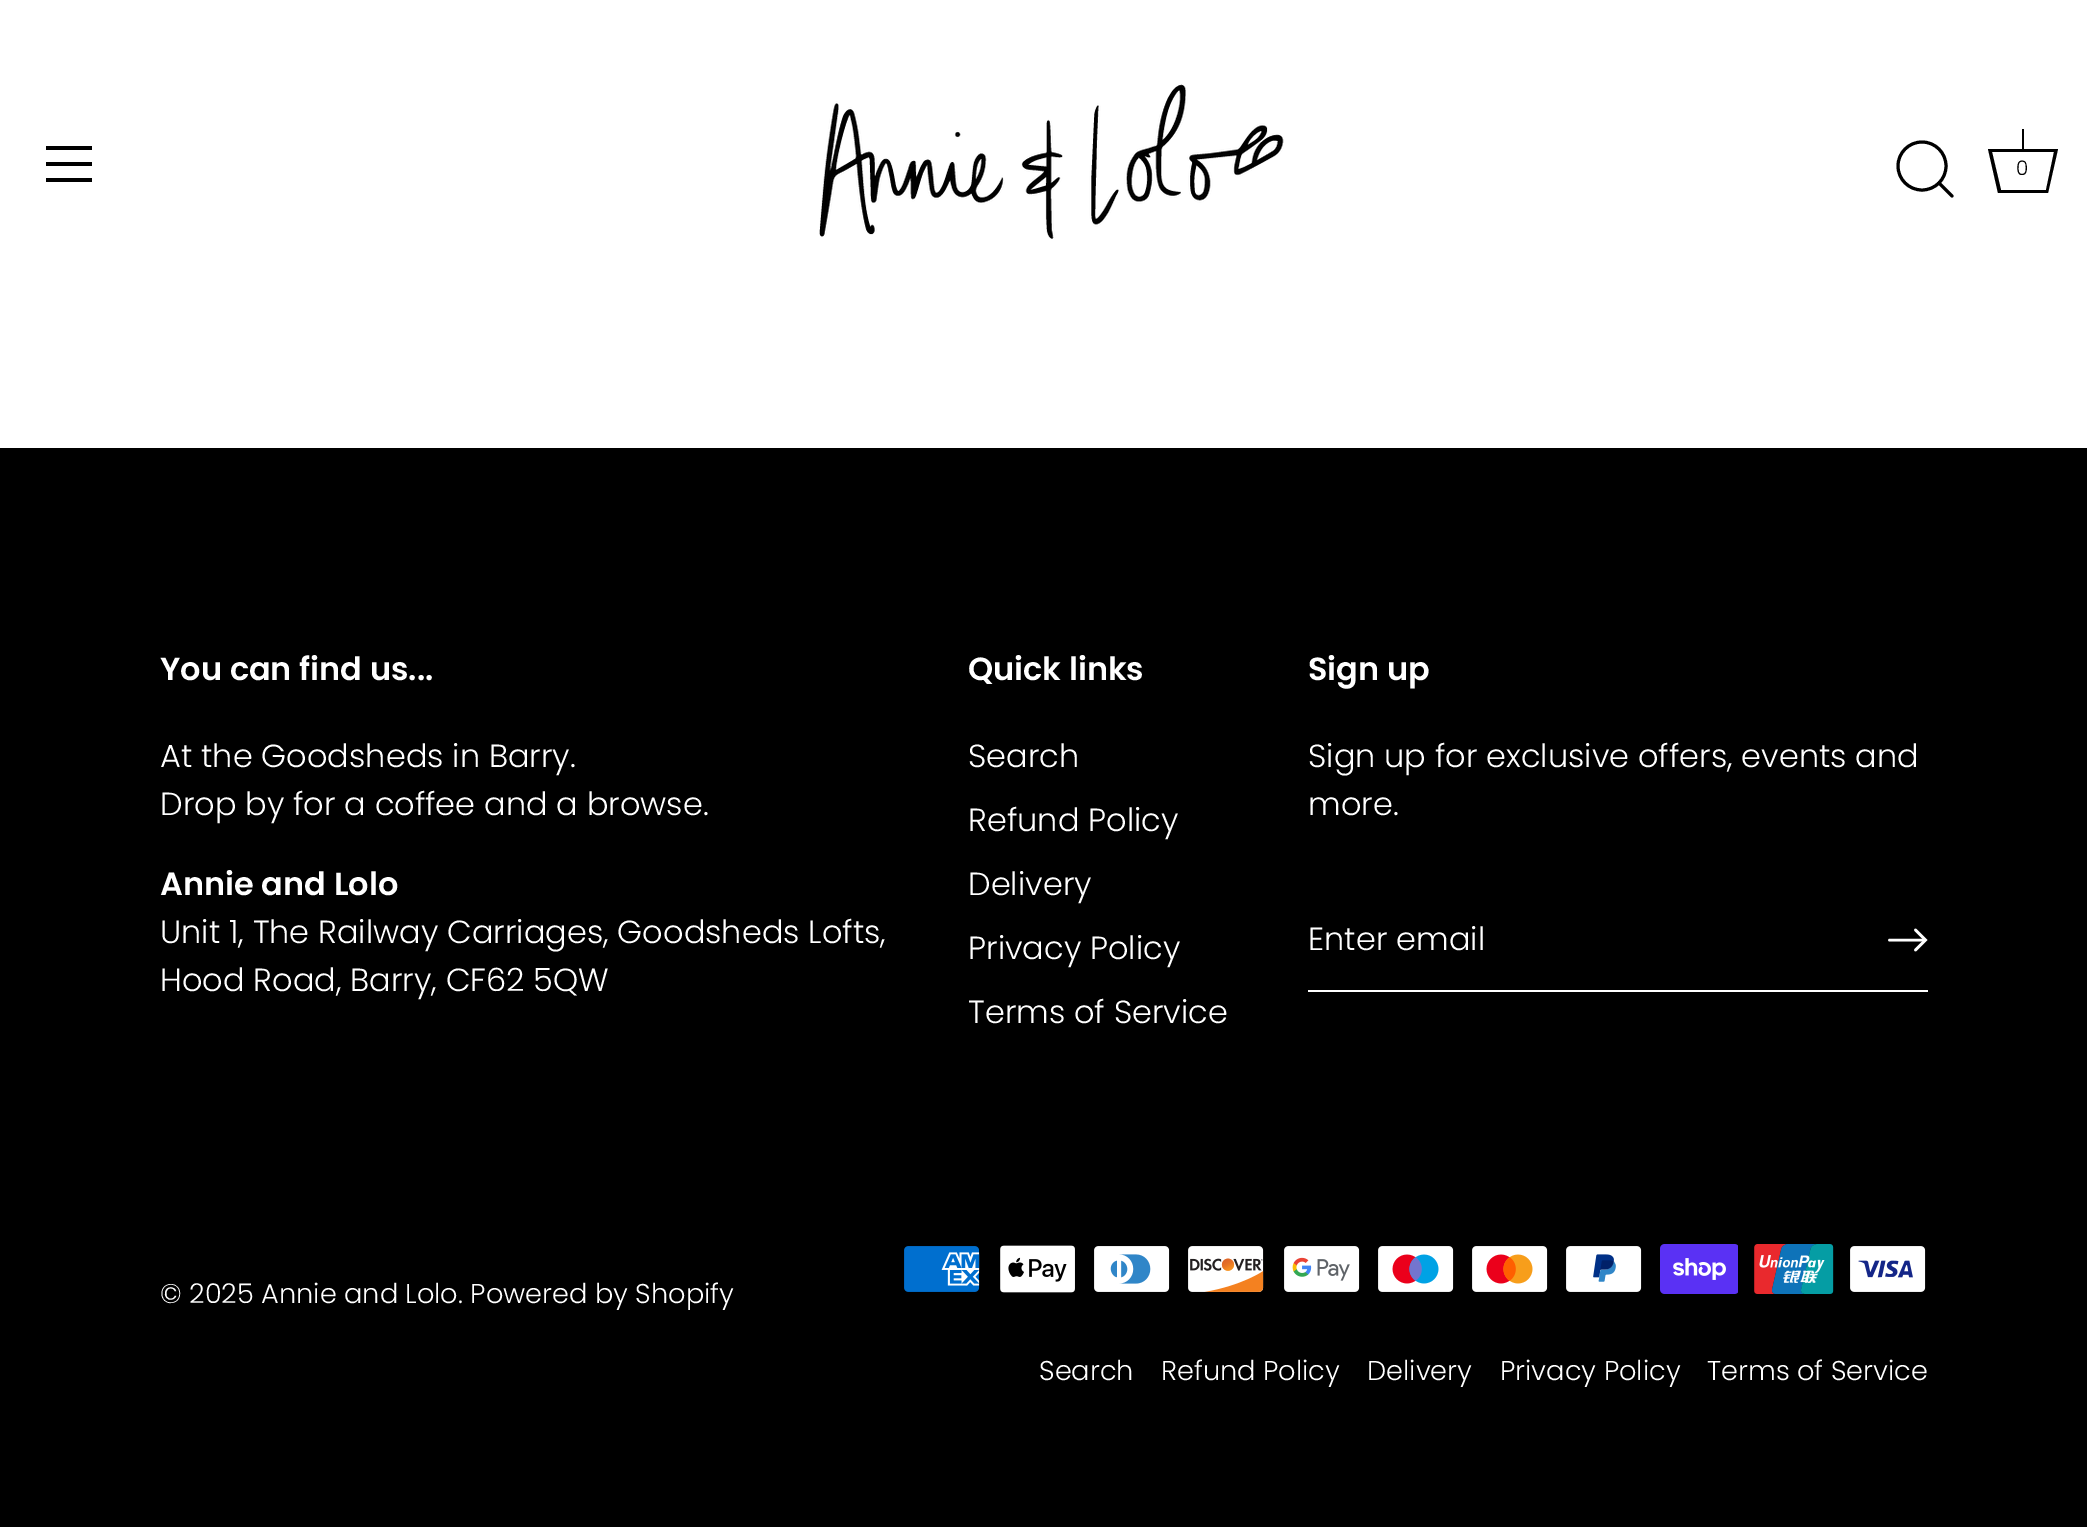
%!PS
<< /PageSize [2087 1527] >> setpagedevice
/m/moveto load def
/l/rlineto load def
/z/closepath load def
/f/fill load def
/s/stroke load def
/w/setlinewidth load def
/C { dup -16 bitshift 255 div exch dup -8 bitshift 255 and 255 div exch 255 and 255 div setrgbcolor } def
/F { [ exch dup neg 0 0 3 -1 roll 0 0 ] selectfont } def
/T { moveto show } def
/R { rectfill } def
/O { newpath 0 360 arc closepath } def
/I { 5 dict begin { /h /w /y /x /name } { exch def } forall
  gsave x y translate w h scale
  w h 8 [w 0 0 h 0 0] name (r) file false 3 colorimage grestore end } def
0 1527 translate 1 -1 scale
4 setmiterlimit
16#FFFFFF C
0 0 2087 1527 R
16#000000 C
46 146 46 4 R
46 162 46 4 R
46 178 46 4 R
(1.rgb) 819 84 465 155 I
3 w
1922 166 24 O s
1 setlinecap
1 setlinejoin
1952 196 m -13 -13 l s
2022 129 2 20 R
2054 152 m -8 38 l -45 0 l -9 -38 l 62 0 l 2058 149 m -70 0 l 10 44 l 50 0 l z f
/Poppins-Light 20 F
(0) 2016 175 T
0 448 2087 1079 R
/Poppins-SemiBold 32 F
16#FFFFFF C
(You can find us...) 160 680 T
/Poppins-Light 32 F
(At the Goodsheds in Barry.) 160 767 T
(Drop by for a coffee and a browse.) 160 815 T
/Poppins-SemiBold 32 F
(Annie and Lolo) 160 895 T
/Poppins-Light 32 F
(Unit 1, The Railway Carriages, Goodsheds Lofts,) 160 943 T
(Hood Road, Barry, CF62 5QW) 160 991 T
/Poppins-SemiBold 32 F
(Quick links) 968 680 T
/Poppins-Light 32 F
(Search) 968 767 T
(Refund Policy) 968 831 T
(Delivery) 968 895 T
(Privacy Policy) 968 959 T
(Terms of Service) 968 1023 T
/Poppins-SemiBold 32 F
(Sign up) 1308 680 T
/Poppins-Light 32 F
(Sign up for exclusive offers, events and) 1308 767 T
(more.) 1308 815 T
1308 990 620 2 R
(Enter email) 1308 950 T
2.6 w
0 setlinejoin
1915.5 950 m 10 -10 l -10 -10 l s
1 setlinejoin
1924.5 940 m -35 0 l s
/Poppins-Light 27.2 F
(© 2025 Annie and Lolo. Powered by Shopify) 160 1303 T
(2.rgb) 904 1246 76 46 I
(3.rgb) 1000 1245 75 48 I
(4.rgb) 1094 1246 76 46 I
(5.rgb) 1188 1246 76 46 I
(6.rgb) 1284 1246 76 46 I
(7.rgb) 1378 1246 76 46 I
(8.rgb) 1472 1246 76 46 I
(9.rgb) 1566 1246 76 46 I
(10.rgb) 1660 1244 78 50 I
(11.rgb) 1754 1244 80 50 I
(12.rgb) 1850 1246 76 46 I
(Search) 1039 1380 T
(Refund Policy) 1161 1380 T
(Delivery) 1367 1380 T
(Privacy Policy) 1500 1380 T
(Terms of Service) 1707 1380 T
showpage
